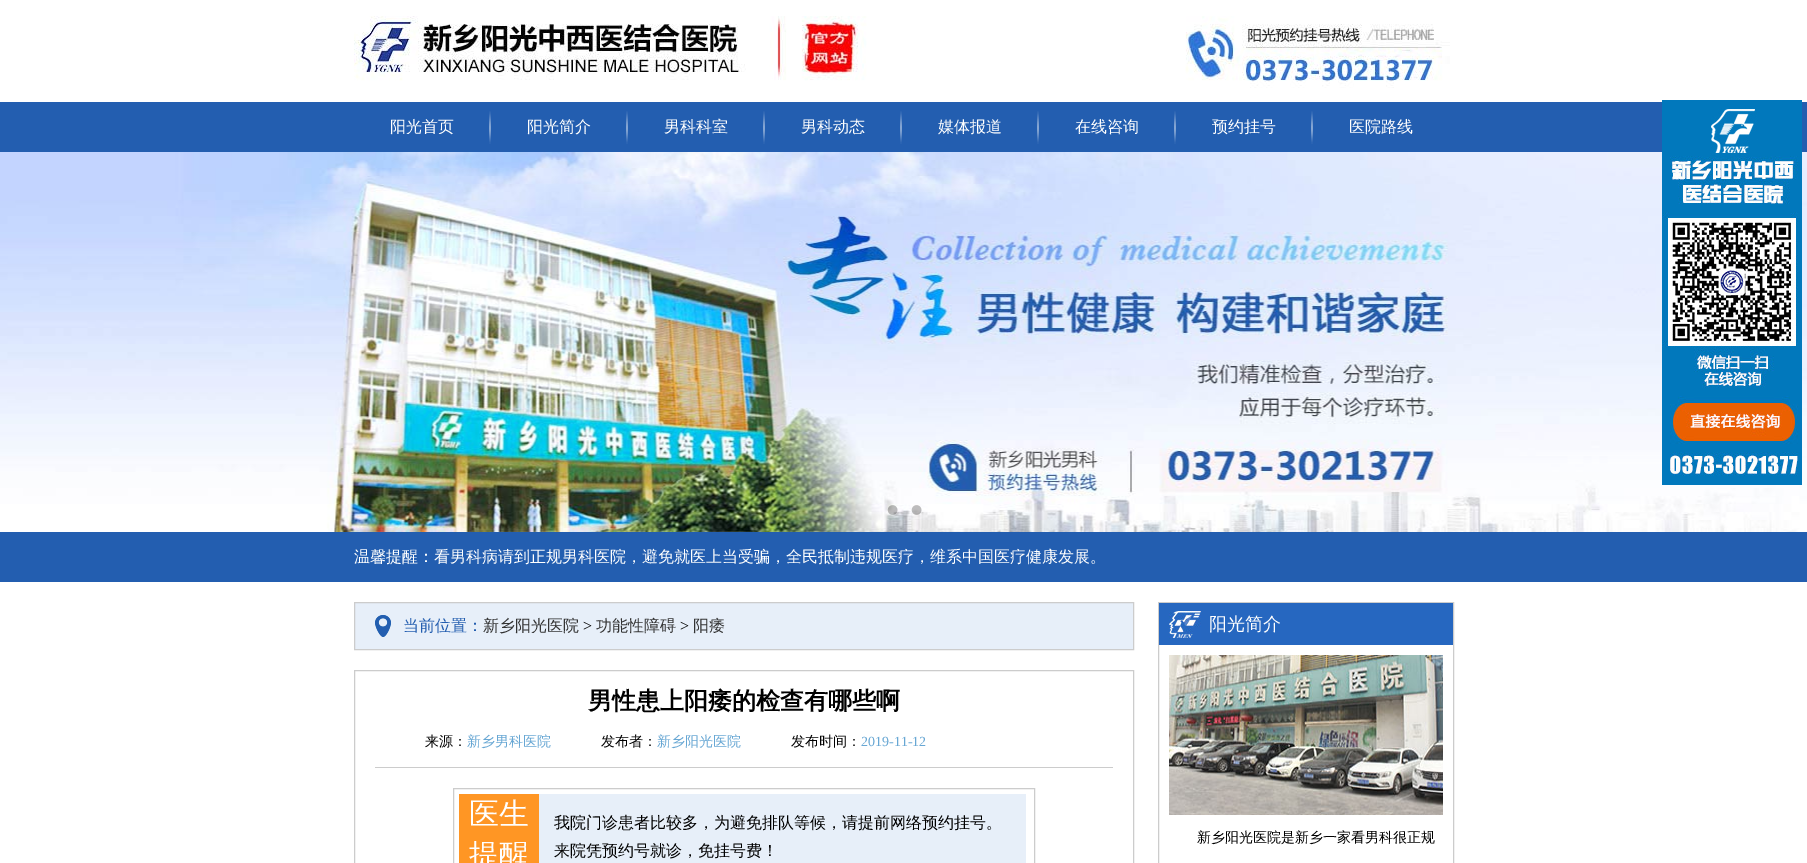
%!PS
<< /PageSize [1807 863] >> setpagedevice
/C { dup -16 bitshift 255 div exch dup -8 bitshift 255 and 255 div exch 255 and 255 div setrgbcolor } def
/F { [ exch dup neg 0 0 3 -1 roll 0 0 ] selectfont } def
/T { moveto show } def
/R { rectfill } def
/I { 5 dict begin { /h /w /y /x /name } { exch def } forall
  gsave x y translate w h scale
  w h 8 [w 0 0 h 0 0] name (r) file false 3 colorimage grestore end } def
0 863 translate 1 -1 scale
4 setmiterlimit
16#FFFFFF C
0 0 1807 863 R
(1.rgb) 354 16 1096 72 I
16#235EB0 C
0 102 1807 50 R
(2.rgb) 489 111 2 33 I
/WenQuanYiZenHei-Medium 16 F
16#FFFFFF C
(阳光首页) 390 132 T
(2.rgb) 626 111 2 33 I
(阳光简介) 527 132 T
(2.rgb) 763 111 2 33 I
(男科科室) 664 132 T
(2.rgb) 900 111 2 33 I
(男科动态) 801 132 T
(2.rgb) 1037 111 2 33 I
(媒体报道) 938 132 T
(2.rgb) 1174 111 2 33 I
(在线咨询) 1075 132 T
(2.rgb) 1311 111 2 33 I
(预约挂号) 1212 132 T
(医院路线) 1349 132 T
(3.rgb) 0 152 1807 380 I
(4.rgb) 887 505 11 11 I
(5.rgb) 911 505 11 10 I
16#235EB0 C
0 532 1807 50 R
16#FFFFFF C
(温馨提醒：看男科病请到正规男科医院，避免就医上当受骗，全民抵制违规医疗，维系中国医疗健康发展。) 354 562 T
(6.rgb) 1662 100 140 385 I
16#E7EFF9 C
355 603 778 46 R
(7.rgb) 375 615 16 22 I
16#CCCCCC C
354.5 602.5 779 47 rectstroke
16#235EB0 C
(当前位置：) 403 631 T
16#333333 C
(新乡阳光医院) 483 631 T
/LiberationSerif-Regular 16 F
16#000000 C
(>) 583 631 T
/WenQuanYiZenHei-Medium 16 F
16#333333 C
(功能性障碍) 596 631 T
/LiberationSerif-Regular 16 F
16#000000 C
(>) 680 631 T
/WenQuanYiZenHei-Medium 16 F
16#333333 C
(阳痿) 693 631 T
16#CCCCCC C
354.5 670.5 779 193 rectstroke
/WenQuanYiZenHei-Bold 24 F
16#000000 C
(男性患上阳痿的检查有哪些啊) 588 709 T
16#CCCCCC C
375 767 738 1 R
/WenQuanYiZenHei-Medium 14 F
16#000000 C
(来源：) 425 746 T
16#67A7D4 C
(新乡男科医院) 467 746 T
16#000000 C
(发布者：) 601 746 T
16#67A7D4 C
(新乡阳光医院) 657 746 T
16#000000 C
(发布时间：) 791 746 T
/LiberationSerif-Regular 14 F
16#67A7D4 C
(2019-11-12) 861 746 T
16#CCCCCC C
453.5 788.5 581 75 rectstroke
16#FF9624 C
459 794 80 69 R
/WenQuanYiZenHei-Medium 30 F
16#FFFFFF C
(医生) 469 824 T
(提醒) 469 865 T
16#E7EFF9 C
539 794 487 69 R
/WenQuanYiZenHei-Medium 16 F
16#000000 C
(我院门诊患者比较多，为避免排队等候，请提前网络预约挂号。) 554 828 T
(来院凭预约号就诊，免挂号费！) 554 856 T
16#CCCCCC C
1158.5 602.5 295 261 rectstroke
16#2667C0 C
1159 603 294 42 R
(8.rgb) 1169 611 32 28 I
/WenQuanYiZenHei-Medium 18 F
16#FFFFFF C
(阳光简介) 1209 630 T
(9.rgb) 1169 655 274 160 I
/WenQuanYiZenHei-Medium 14 F
16#000000 C
(新乡阳光医院是新乡一家看男科很正规) 1197 842 T
showpage
